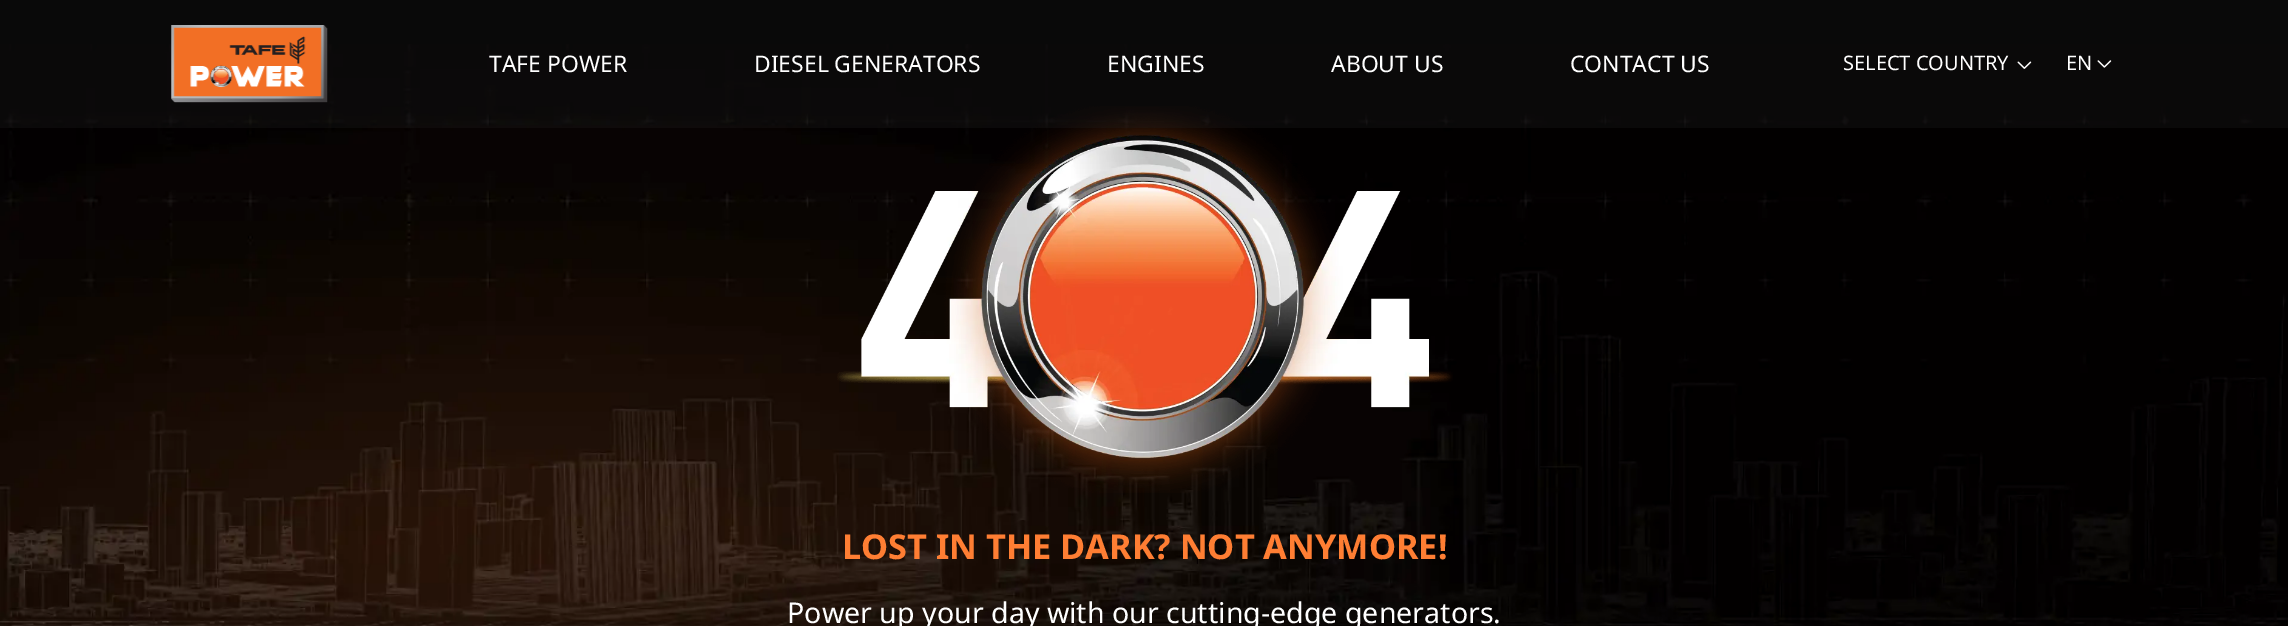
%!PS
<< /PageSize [2288 626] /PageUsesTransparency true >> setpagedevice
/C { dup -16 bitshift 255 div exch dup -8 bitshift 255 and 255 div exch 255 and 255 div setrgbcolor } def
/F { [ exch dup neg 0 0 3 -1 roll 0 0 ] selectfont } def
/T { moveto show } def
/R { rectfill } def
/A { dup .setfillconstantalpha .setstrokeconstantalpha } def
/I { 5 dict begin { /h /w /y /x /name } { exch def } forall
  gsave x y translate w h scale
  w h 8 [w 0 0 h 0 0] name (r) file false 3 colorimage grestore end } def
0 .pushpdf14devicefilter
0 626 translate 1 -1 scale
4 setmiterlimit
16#000000 C
0 0 2288 626 R
(4.rgb) 0 44 2288 582 I
(5.rgb) 837 106 616 387 I
0.3 A
16#1E1E1E C
0 0 2288 128 R
1 A
(1.rgb) 171 25 157 78 I
/NotoSans-Regular 22.9 F
16#FFFFFF C
(TAFE POWER) 489 72 T
(DIESEL GENERATORS) 754 72 T
(ENGINES) 1107 72 T
(ABOUT US) 1331 72 T
(CONTACT US) 1570 72 T
/NotoSans-Regular 20 F
(SELECT COUNTRY) 1843 70 T
(2.rgb) 2017 61 15 8 I
(EN) 2066 70 T
(3.rgb) 2097 60 15 8 I
/NotoSans-Bold 34.3 F
16#FF7E33 C
(LOST IN THE DARK? NOT ANYMORE!) 842 559 T
/NotoSans-Regular 28.6 F
16#FFFFFF C
(Power up your day with our cutting-edge generators.) 787 623 T
.poppdf14devicefilter showpage
